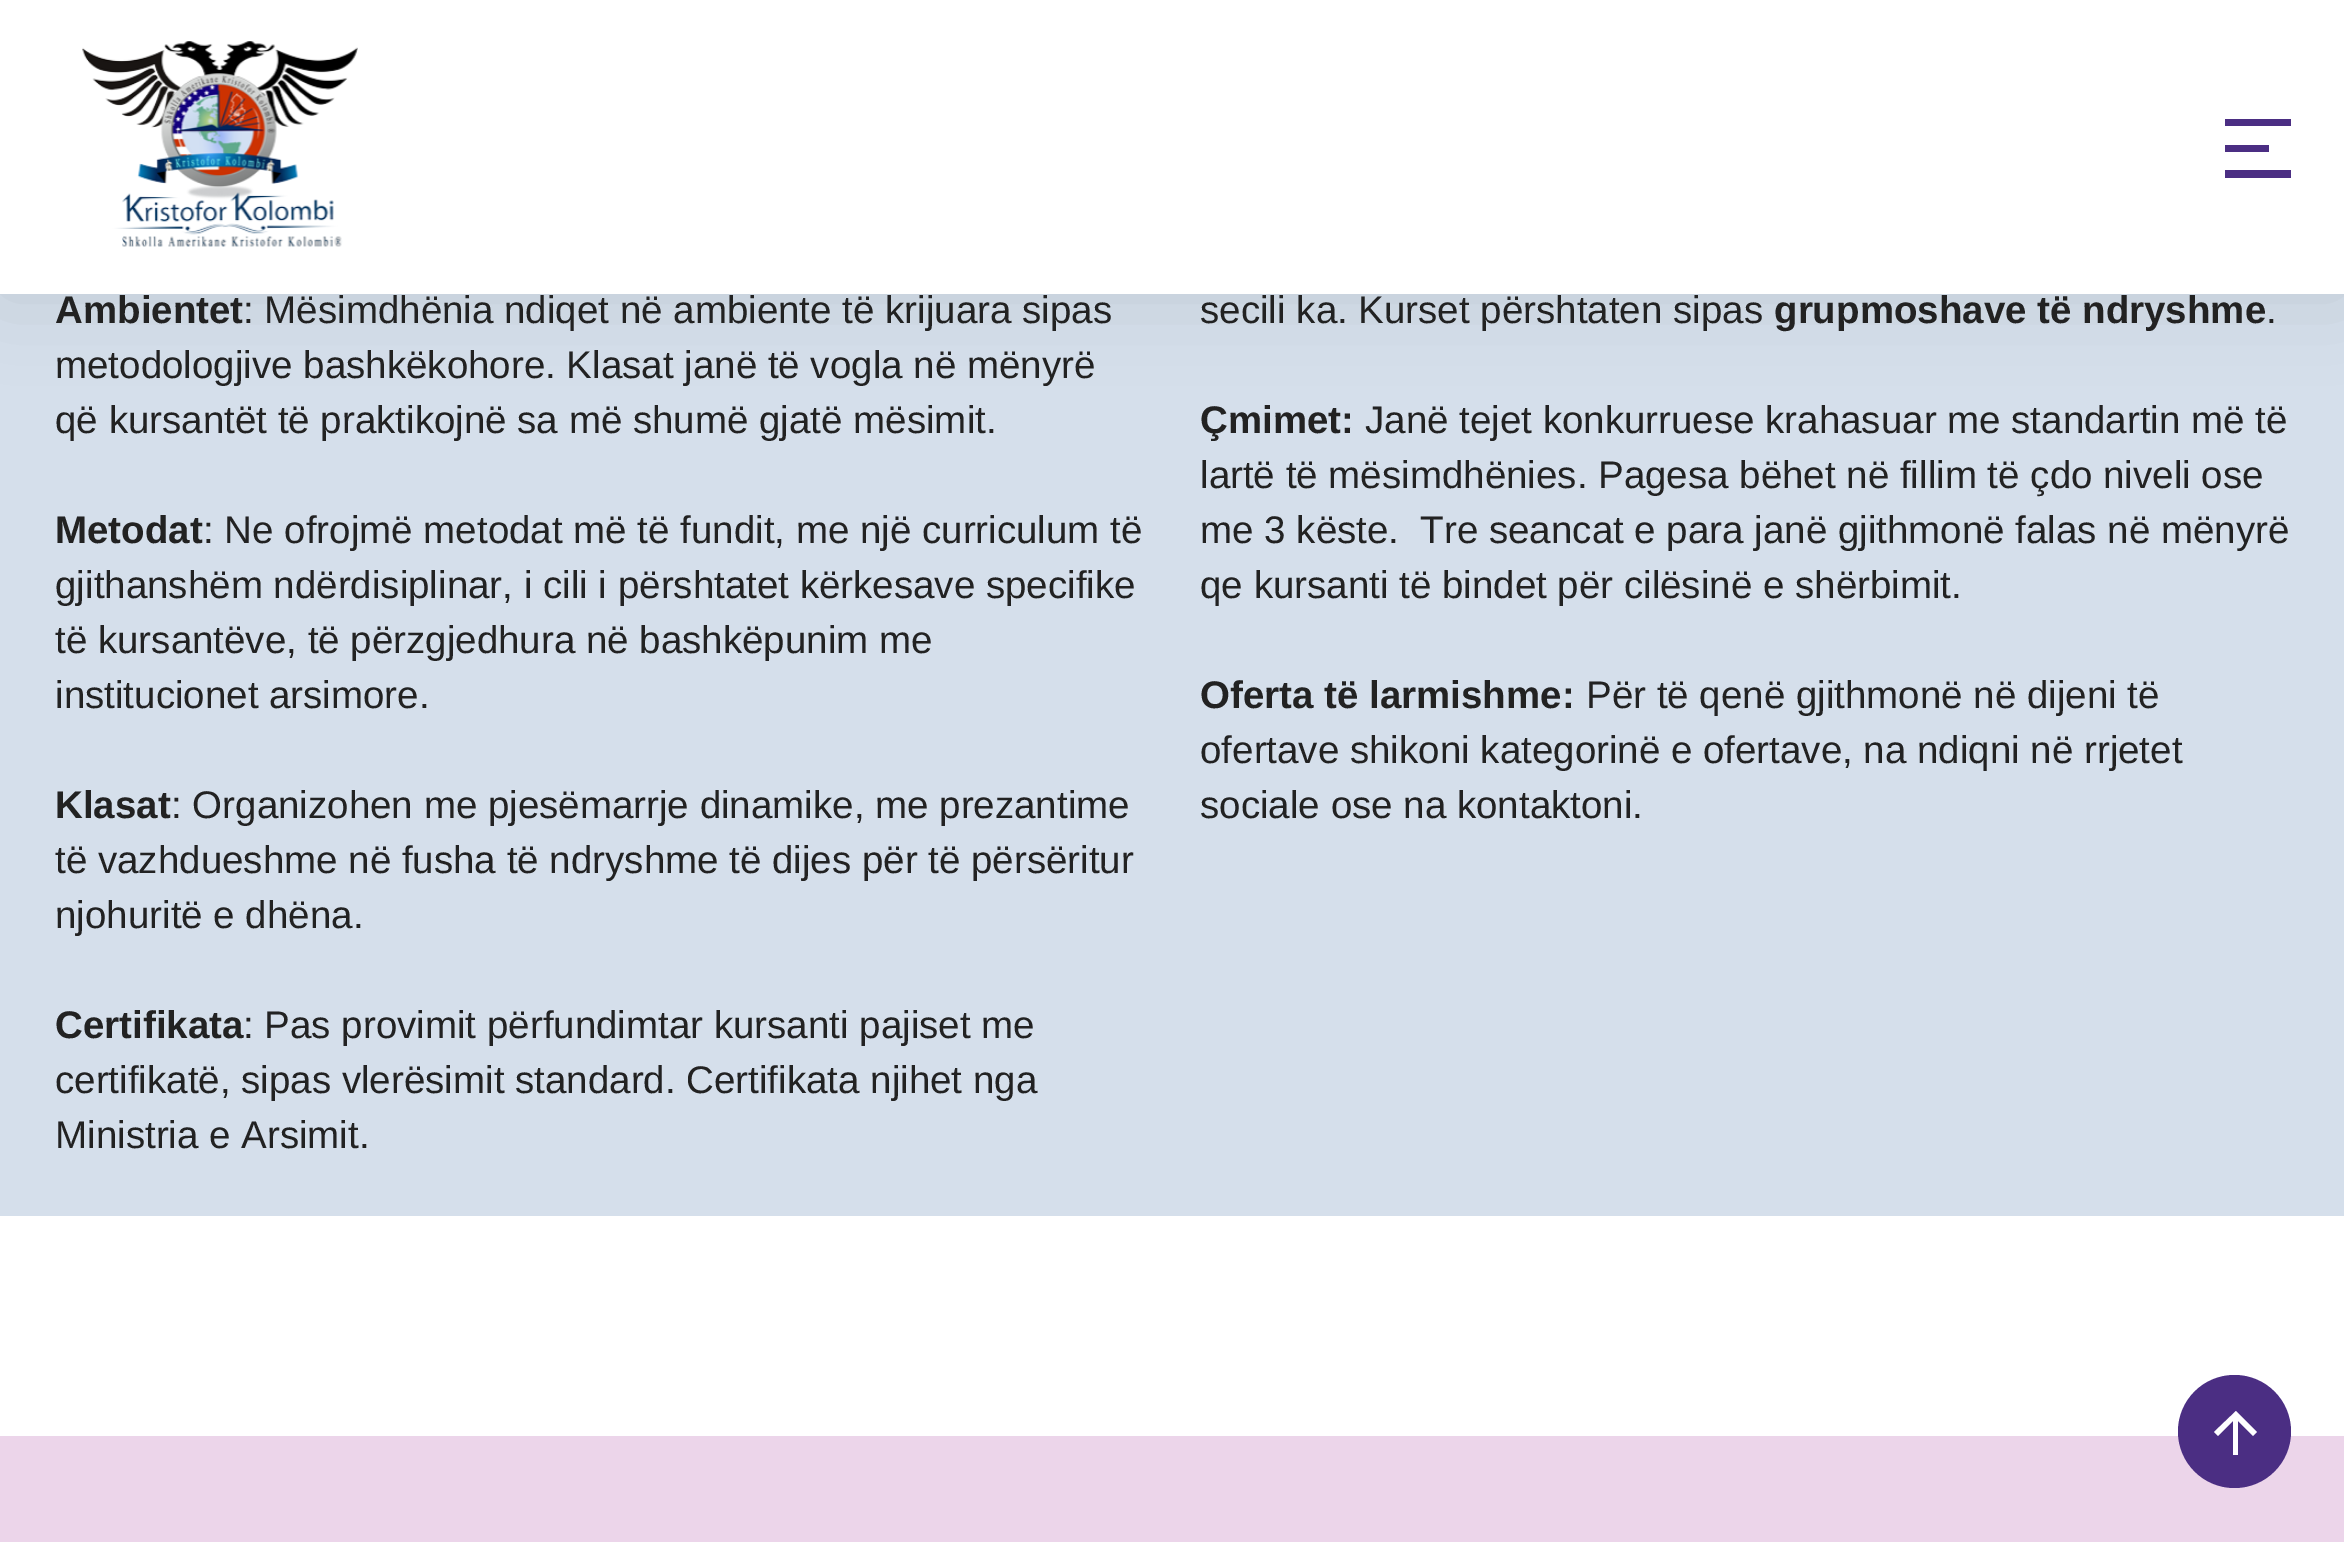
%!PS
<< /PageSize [2344 1542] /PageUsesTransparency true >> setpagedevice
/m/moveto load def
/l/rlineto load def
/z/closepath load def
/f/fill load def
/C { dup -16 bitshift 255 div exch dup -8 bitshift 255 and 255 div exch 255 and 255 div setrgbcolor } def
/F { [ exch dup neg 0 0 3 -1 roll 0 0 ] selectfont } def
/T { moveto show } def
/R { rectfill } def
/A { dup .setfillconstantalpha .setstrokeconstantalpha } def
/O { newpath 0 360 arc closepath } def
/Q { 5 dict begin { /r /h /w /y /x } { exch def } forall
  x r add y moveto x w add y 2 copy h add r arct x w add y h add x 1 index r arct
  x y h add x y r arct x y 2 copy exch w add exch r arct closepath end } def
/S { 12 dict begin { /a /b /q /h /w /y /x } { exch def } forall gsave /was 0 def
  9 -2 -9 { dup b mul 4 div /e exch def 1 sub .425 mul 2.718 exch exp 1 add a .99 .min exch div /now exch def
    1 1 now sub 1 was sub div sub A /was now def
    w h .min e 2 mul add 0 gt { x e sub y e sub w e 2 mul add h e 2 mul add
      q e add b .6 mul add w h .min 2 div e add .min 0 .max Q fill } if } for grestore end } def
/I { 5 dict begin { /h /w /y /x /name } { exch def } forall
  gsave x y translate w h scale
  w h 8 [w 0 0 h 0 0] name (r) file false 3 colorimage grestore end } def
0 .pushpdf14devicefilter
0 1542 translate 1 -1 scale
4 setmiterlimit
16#FFFFFF C
0 0 2344 1542 R
16#D5DFEB C
0 294 2344 922 R
16#000000 C
0 0 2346 294 0 41 .1 S
16#FFFFFF C
0 0 2344 294 R
(1.rgb) 82 41 276 206 I
16#4B2E83 C
2225 119 m 66 0 l 0 7 l -66 0 l z 2225 145 m 44 0 l 0 7 l -44 0 l z 2225 170 m 66 0 l 0 8 l -66 0 l z f
/LiberationSans-Bold 38.5 F
16#222222 C
(Ambientet) 55 323 T
/LiberationSans-Regular 38.5 F
(: Mësimdhënia ndiqet në ambiente të krijuara sipas) 243 323 T
(metodologjive bashkëkohore. Klasat janë të vogla në mënyrë) 55 378 T
(që kursantët të praktikojnë sa më shumë gjatë mësimit.) 55 433 T
/LiberationSans-Bold 38.5 F
(Metodat) 55 543 T
/LiberationSans-Regular 38.5 F
(: Ne ofrojmë metodat më të fundit, me një curriculum të) 203 543 T
(gjithanshëm ndërdisiplinar, i cili i përshtatet kërkesave specifike) 55 598 T
(të kursantëve, të përzgjedhura në bashkëpunim me) 55 653 T
(institucionet arsimore.) 55 708 T
/LiberationSans-Bold 38.5 F
(Klasat) 55 818 T
/LiberationSans-Regular 38.5 F
(: Organizohen me pjesëmarrje dinamike, me prezantime) 171 818 T
(të vazhdueshme në fusha të ndryshme të dijes për të përsëritur) 55 873 T
(njohuritë e dhëna.) 55 928 T
/LiberationSans-Bold 38.5 F
(Certifikata) 55 1038 T
/LiberationSans-Regular 38.5 F
(: Pas provimit përfundimtar kursanti pajiset me) 243 1038 T
(certifikatë, sipas vlerësimit standard. Certifikata njihet nga) 55 1093 T
(Ministria e Arsimit.) 55 1148 T
(secili ka. Kurset përshtaten sipas) 1200 323 T
/LiberationSans-Bold 38.5 F
(grupmoshave të ndryshme) 1774 323 T
/LiberationSans-Regular 38.5 F
(.) 2266 323 T
/LiberationSans-Bold 38.5 F
(Çmimet:) 1200 433 T
/LiberationSans-Regular 38.5 F
(Janë tejet konkurruese krahasuar me standartin më të) 1365 433 T
(lartë të mësimdhënies. Pagesa bëhet në fillim të çdo niveli ose) 1200 488 T
(me 3 këste.  Tre seancat e para janë gjithmonë falas në mënyrë) 1200 543 T
(qe kursanti të bindet për cilësinë e shërbimit.) 1200 598 T
/LiberationSans-Bold 38.5 F
(Oferta të larmishme:) 1200 708 T
/LiberationSans-Regular 38.5 F
(Për të qenë gjithmonë në dijeni të) 1586 708 T
(ofertave shikoni kategorinë e ofertave, na ndiqni në rrjetet) 1200 763 T
(sociale ose na kontaktoni.) 1200 818 T
16#ECD5EA C
0 1436 2344 106 R
16#4B2E83 C
2234.5 1431.5 56.5 O f
16#FFFFFF C
2238 1421 m 0 34 l -5 0 l 0 -34 l -15 15 l -4 -4 l 22 -21 l 21 21 l -4 4 l z f
.poppdf14devicefilter showpage
